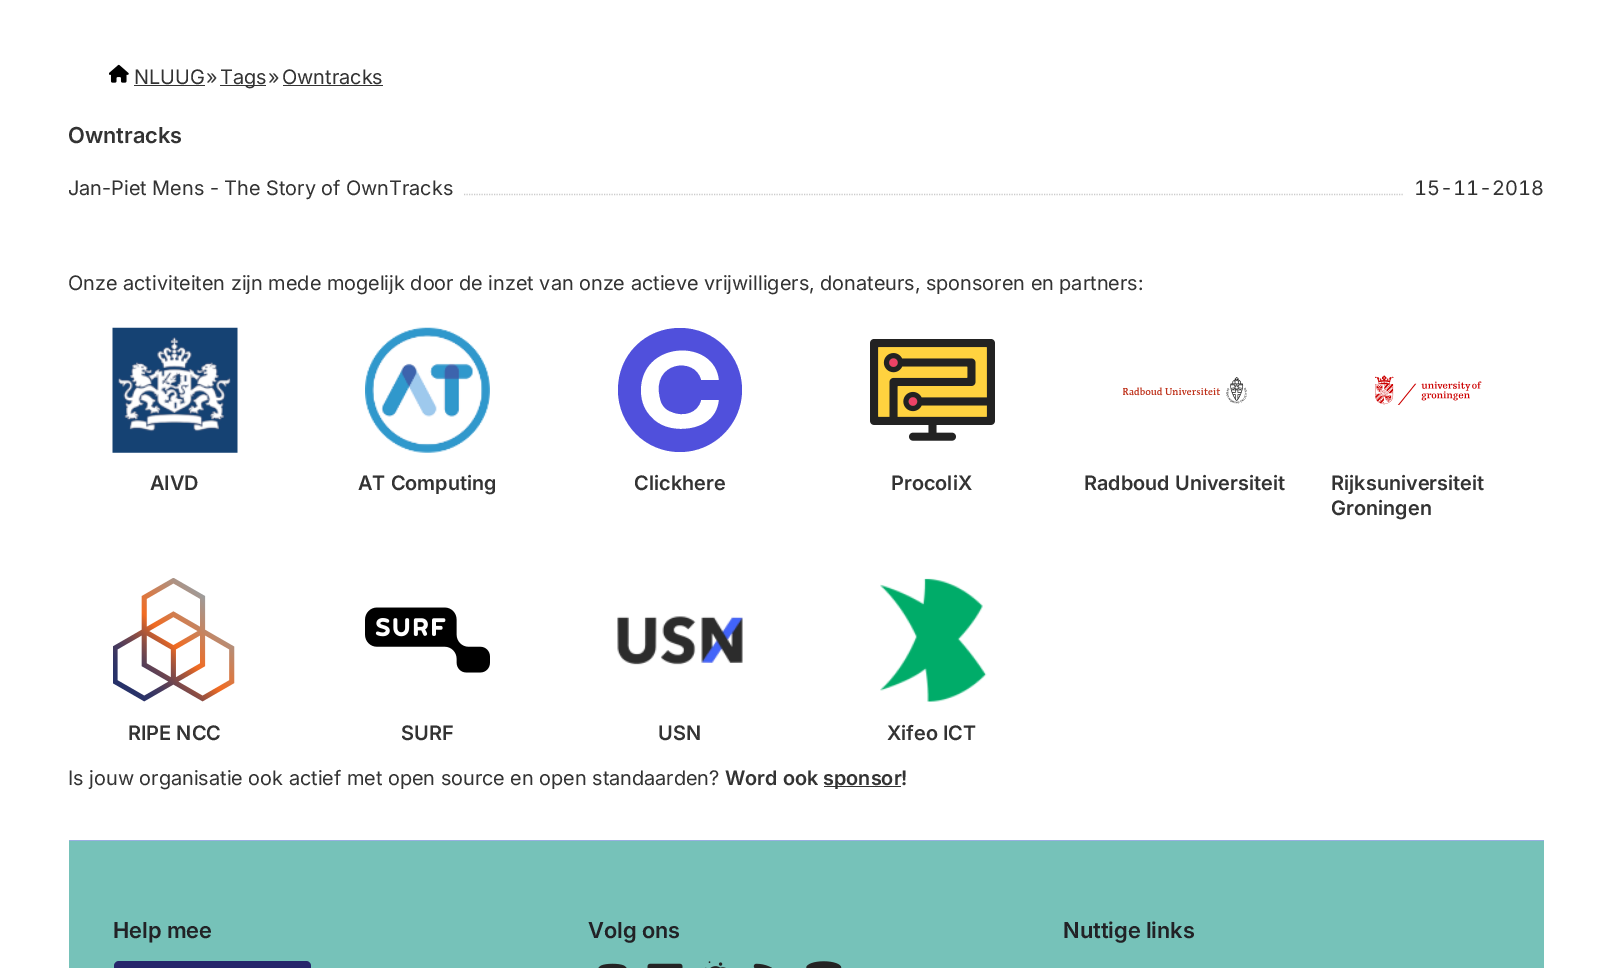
%!PS
<< /PageSize [1611 968] >> setpagedevice
/m/moveto load def
/l/rlineto load def
/c/rcurveto load def
/z/closepath load def
/f/fill load def
/s/stroke load def
/w/setlinewidth load def
/C { dup -16 bitshift 255 div exch dup -8 bitshift 255 and 255 div exch 255 and 255 div setrgbcolor } def
/F { [ exch dup neg 0 0 3 -1 roll 0 0 ] selectfont } def
/T { moveto show } def
/R { rectfill } def
/Q { 5 dict begin { /r /h /w /y /x } { exch def } forall
  x r add y moveto x w add y 2 copy h add r arct x w add y h add x 1 index r arct
  x y h add x y r arct x y 2 copy exch w add exch r arct closepath end } def
/I { 5 dict begin { /h /w /y /x /name } { exch def } forall
  gsave x y translate w h scale
  w h 8 [w 0 0 h 0 0] name (r) file false 3 colorimage grestore end } def
0 968 translate 1 -1 scale
4 setmiterlimit
16#FFFFFF C
0 0 1611 968 R
(1.rgb) 109 64 20 19 I
/Inter-Regular 20 F
16#333333 C
(NLUUG) 134 84 T
134 85 71 1 R
(») 206 84 T
220 85 46 1 R
(Tags) 220 84 T
(») 268 84 T
(Owntracks) 282 84 T
283 85 100 1 R
/Inter-SemiBold 22 F
(Owntracks) 68 143 T
/Inter-Regular 20 F
(Jan-Piet Mens - The Story of OwnTracks) 68 195 T
16#CCCCCC C
1.2 w
[1.25 1.25] 0 setdash
464 194.5 m 940 0 l s
/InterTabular-Regular 20 F
16#333333 C
(15-11-2018) 1414 195 T
/Inter-Regular 20 F
(Onze activiteiten zijn mede mogelijk door de inzet van onze actieve vrijwilligers, donateurs, sponsoren en partners:) 68 290 T
(2.rgb) 112 327 126 126 I
/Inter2-SemiBold 20 F
(AIVD) 150 490 T
(3.rgb) 365 327 125 126 I
(AT Computing) 358 490 T
16#5050DC C
680 328 m 34 0 62 27 62 62 c 0 34 -28 62 -62 62 c -35 0 -62 -28 -62 -62 c 0 -35 27 -62 62 -62 c z 681 429 m -14 0 -26 -5 -34 -17 c -5 -7 -7 -17 -6 -26 c 4 -46 74 -47 78 -6 c -18 0 l -6 -24 -50 -18 -41 18 c 1 6 5 12 12 14 c 11 5 26 1 29 -12 c 18 0 l -2 20 -19 29 -38 29 c z eofill
16#333333 C
(Clickhere) 634 490 T
(4.rgb) 870 339 125 102 I
(ProcoliX) 891 490 T
(5.rgb) 1123 377 124 27 I
(Radboud Universiteit) 1084 490 T
(6.rgb) 1375 375 107 30 I
(Rijksuniversiteit) 1331 490 T
(Groningen) 1331 515 T
(7.rgb) 113 578 122 124 I
(RIPE NCC) 128 740 T
(8.rgb) 365 607 125 66 I
(SURF) 401 740 T
(9.rgb) 617 616 126 49 I
(USN) 658 740 T
(10.rgb) 880 578 107 124 I
(Xifeo ICT) 887 740 T
/Inter-Regular 20 F
(Is jouw organisatie ook actief met open source en open standaarden?) 68 785 T
/Inter2-SemiBold 20 F
(Word ook) 725 785 T
824 786 77 1 R
(sponsor!) 823 785 T
16#76C2B9 C
69 841 1475 127 R
16#99AFE2 C
69 840 1475 1 R
/Inter-SemiBold 22 F
16#222226 C
(Help mee) 113 938 T
16#26266B C
114 961 197 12 5 Q f
16#222226 C
(Volg ons) 588 938 T
(11.rgb) 598 963 29 5 I
(12.rgb) 647 963 36 5 I
(13.rgb) 705 961 21 7 I
(14.rgb) 753 963 19 5 I
(15.rgb) 806 961 36 7 I
(Nuttige links) 1063 938 T
showpage
